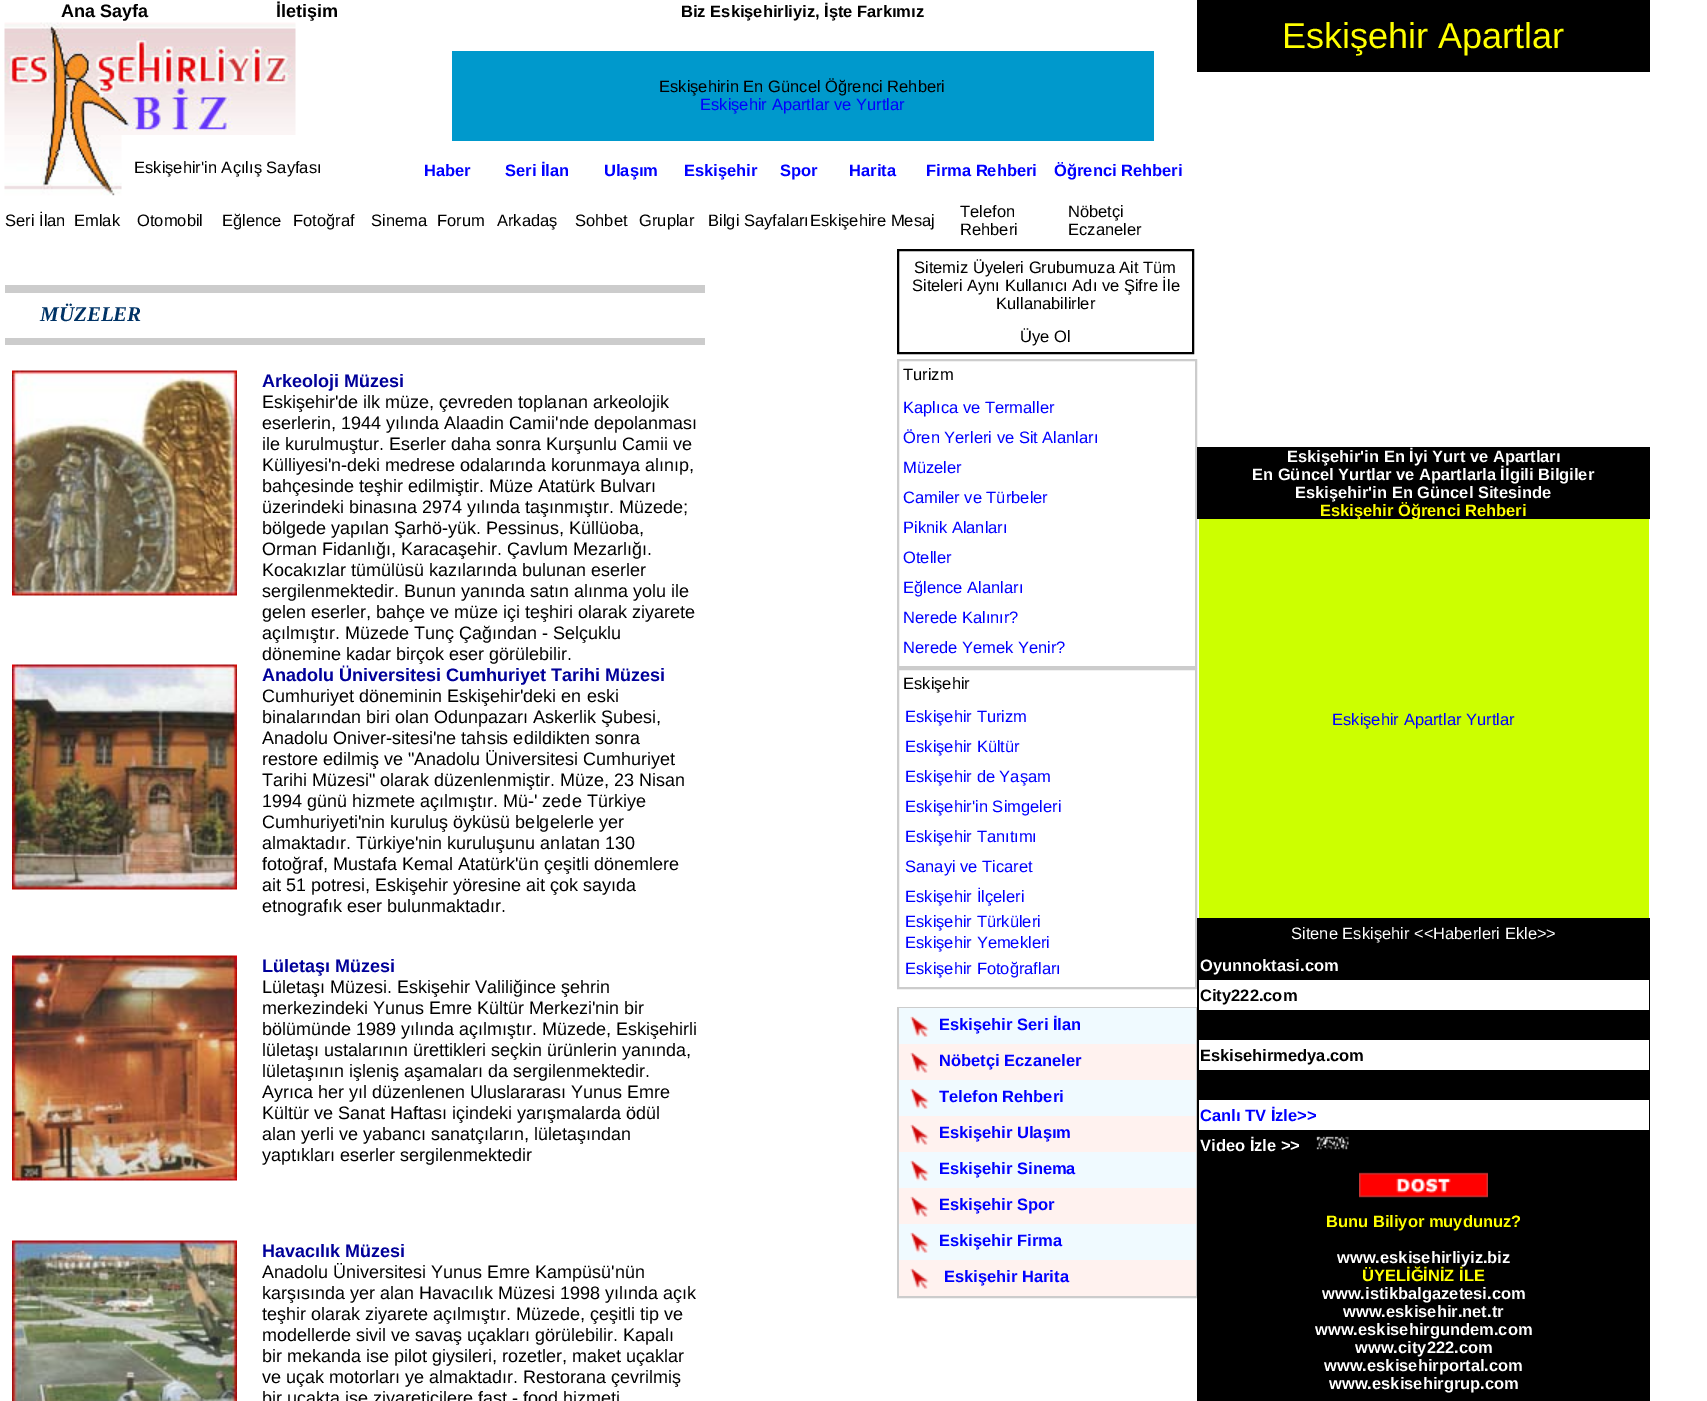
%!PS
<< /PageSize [1707 1401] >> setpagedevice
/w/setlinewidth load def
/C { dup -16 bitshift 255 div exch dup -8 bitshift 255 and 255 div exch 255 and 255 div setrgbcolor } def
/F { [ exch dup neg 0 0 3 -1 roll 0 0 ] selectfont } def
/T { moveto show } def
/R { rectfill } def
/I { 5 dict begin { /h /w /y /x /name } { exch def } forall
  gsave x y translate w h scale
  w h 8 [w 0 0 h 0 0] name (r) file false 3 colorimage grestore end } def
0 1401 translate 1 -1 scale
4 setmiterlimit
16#FFFFFF C
0 0 1707 1401 R
/LiberationSans-Bold 18 F
16#000000 C
(Ana Sayfa) 61 17 T
(İletişim) 276 17 T
/LiberationSans-Bold 16.5 F
(Biz Eskişehirliyiz, İşte Farkımız) 681 17 T
(1.rgb) 4 22 292 113 I
(2.rgb) 4 135 118 61 I
/LiberationSans-Regular 16.5 F
(Eskişehir'in Açılış Sayfası) 134 173 T
16#0099CC C
452 51 702 90 R
16#000000 C
(Eskişehirin En Güncel Öğrenci Rehberi) 659 92 T
16#0000FF C
(Eskişehir Apartlar ve Yurtlar) 700 110 T
/LiberationSans-Bold 16.5 F
(Haber) 424 176 T
(Seri İlan) 505 176 T
(Ulaşım) 604 176 T
(Eskişehir) 684 176 T
(Spor) 780 176 T
(Harita) 849 176 T
(Firma Rehberi) 926 176 T
(Öğrenci Rehberi) 1054 176 T
/LiberationSans-Regular 16.5 F
16#000000 C
(Seri İlan) 5 226 T
(Emlak) 74 226 T
(Otomobil) 137 226 T
(Eğlence) 222 226 T
(Fotoğraf) 293 226 T
(Sinema) 371 226 T
(Forum) 437 226 T
(Arkadaş) 497 226 T
(Sohbet) 575 226 T
(Gruplar) 639 226 T
(Bilgi Sayfaları) 708 226 T
(Eskişehire Mesaj) 810 226 T
(Telefon) 960 217 T
(Rehberi) 960 235 T
(Nöbetçi) 1068 217 T
(Eczaneler) 1068 235 T
16#CCCCCC C
5 285 700 8 R
/LiberationSerif-BoldItalic 21 F
16#003366 C
(MÜZELER) 40 321 T
16#CCCCCC C
5 338 700 7 R
(3.rgb) 12 370 225 226 I
/LiberationSans-Bold 18 F
16#000099 C
(Arkeoloji Müzesi) 262 387 T
/LiberationSans-Regular 18 F
16#000000 C
(Eskişehir'de ilk müze, çevreden toplanan arkeolojik) 262 408 T
(eserlerin, 1944 yılında Alaadin Camii'nde depolanması) 262 429 T
(ile kurulmuştur. Eserler daha sonra Kurşunlu Camii ve) 262 450 T
(Külliyesi'n-deki medrese odalarında korunmaya alınıp,) 262 471 T
(bahçesinde teşhir edilmiştir. Müze Atatürk Bulvarı) 262 492 T
(üzerindeki binasına 2974 yılında taşınmıştır. Müzede;) 262 513 T
(bölgede yapılan Şarhö-yük. Pessinus, Küllüoba,) 262 534 T
(Orman Fidanlığı, Karacaşehir. Çavlum Mezarlığı.) 262 555 T
(Kocakızlar tümülüsü kazılarında bulunan eserler) 262 576 T
(sergilenmektedir. Bunun yanında satın alınma yolu ile) 262 597 T
(gelen eserler, bahçe ve müze içi teşhiri olarak ziyarete) 262 618 T
(açılmıştır. Müzede Tunç Çağından - Selçuklu) 262 639 T
(dönemine kadar birçok eser görülebilir.) 262 660 T
(4.rgb) 12 664 225 226 I
/LiberationSans-Bold 18 F
16#000099 C
(Anadolu Üniversitesi Cumhuriyet Tarihi Müzesi) 262 681 T
/LiberationSans-Regular 18 F
16#000000 C
(Cumhuriyet döneminin Eskişehir'deki en eski) 262 702 T
(binalarından biri olan Odunpazarı Askerlik Şubesi,) 262 723 T
(Anadolu Oniver-sitesi'ne tahsis edildikten sonra) 262 744 T
(restore edilmiş ve "Anadolu Üniversitesi Cumhuriyet) 262 765 T
(Tarihi Müzesi" olarak düzenlenmiştir. Müze, 23 Nisan) 262 786 T
(1994 günü hizmete açılmıştır. Mü-' zede Türkiye) 262 807 T
(Cumhuriyeti'nin kuruluş öyküsü belgelerle yer) 262 828 T
(almaktadır. Türkiye'nin kuruluşunu anlatan 130) 262 849 T
(fotoğraf, Mustafa Kemal Atatürk'ün çeşitli dönemlere) 262 870 T
(ait 51 potresi, Eskişehir yöresine ait çok sayıda) 262 891 T
(etnografık eser bulunmaktadır.) 262 912 T
(5.rgb) 12 955 225 226 I
/LiberationSans-Bold 18 F
16#000099 C
(Lületaşı Müzesi) 262 972 T
/LiberationSans-Regular 18 F
16#000000 C
(Lületaşı Müzesi. Eskişehir Valiliğince şehrin) 262 993 T
(merkezindeki Yunus Emre Kültür Merkezi'nin bir) 262 1014 T
(bölümünde 1989 yılında açılmıştır. Müzede, Eskişehirli) 262 1035 T
(lületaşı ustalarının ürettikleri seçkin ürünlerin yanında,) 262 1056 T
(lületaşının işleniş aşamaları da sergilenmektedir.) 262 1077 T
(Ayrıca her yıl düzenlenen Uluslararası Yunus Emre) 262 1098 T
(Kültür ve Sanat Haftası içindeki yarışmalarda ödül) 262 1119 T
(alan yerli ve yabancı sanatçıların, lületaşından) 262 1140 T
(yaptıkları eserler sergilenmektedir) 262 1161 T
(6.rgb) 12 1240 225 161 I
/LiberationSans-Bold 18 F
16#000099 C
(Havacılık Müzesi) 262 1257 T
/LiberationSans-Regular 18 F
16#000000 C
(Anadolu Üniversitesi Yunus Emre Kampüsü'nün) 262 1278 T
(karşısında yer alan Havacılık Müzesi 1998 yılında açık) 262 1299 T
(teşhir olarak ziyarete açılmıştır. Müzede, çeşitli tip ve) 262 1320 T
(modellerde sivil ve savaş uçakları görülebilir. Kapalı) 262 1341 T
(bir mekanda ise pilot giysileri, rozetler, maket uçaklar) 262 1362 T
(ve uçak motorları ye almaktadır. Restorana çevrilmiş) 262 1383 T
(bir uçakta ise ziyaretiçilere fast - food hizmeti) 262 1404 T
2 w
898 250 295 103 rectstroke
/LiberationSans-Regular 16.5 F
(Sitemiz Üyeleri Grubumuza Ait Tüm) 914 273 T
(Siteleri Aynı Kullanıcı Adı ve Şifre İle) 912 291 T
(Kullanabilirler) 996 309 T
(Üye Ol) 1020 342 T
16#CCCCCC C
898 360 298 307 rectstroke
16#000000 C
(Turizm) 903 380 T
16#0000FF C
(Kaplıca ve Termaller) 903 413 T
(Ören Yerleri ve Sit Alanları) 903 443 T
(Müzeler) 903 473 T
(Camiler ve Türbeler) 903 503 T
(Piknik Alanları) 903 533 T
(Oteller) 903 563 T
(Eğlence Alanları) 903 593 T
(Nerede Kalınır?) 903 623 T
(Nerede Yemek Yenir?) 903 653 T
16#CCCCCC C
898 669 298 319 rectstroke
16#000000 C
(Eskişehir) 903 689 T
16#0000FF C
(Eskişehir Turizm) 905 722 T
(Eskişehir Kültür) 905 752 T
(Eskişehir de Yaşam) 905 782 T
(Eskişehir'in Simgeleri) 905 812 T
(Eskişehir Tanıtımı) 905 842 T
(Sanayi ve Ticaret) 905 872 T
(Eskişehir İlçeleri) 905 902 T
(Eskişehir Türküleri) 905 927 T
(Eskişehir Yemekleri) 905 948 T
(Eskişehir Fotoğrafları) 905 974 T
16#CCCCCC C
898 1008 298 289 rectstroke
16#F0FAFF C
899 1008 297 36 R
(7.rgb) 910 1016 19 21 I
/LiberationSans-Bold 16.5 F
16#0000FF C
(Eskişehir Seri İlan) 939 1030 T
16#FFF2EF C
899 1044 297 36 R
(8.rgb) 910 1052 19 21 I
16#0000FF C
(Nöbetçi Eczaneler) 939 1066 T
16#F0FAFF C
899 1080 297 36 R
(7.rgb) 910 1088 19 21 I
16#0000FF C
(Telefon Rehberi) 939 1102 T
16#FFF2EF C
899 1116 297 36 R
(8.rgb) 910 1124 19 21 I
16#0000FF C
(Eskişehir Ulaşım) 939 1138 T
16#F0FAFF C
899 1152 297 36 R
(7.rgb) 910 1160 19 21 I
16#0000FF C
(Eskişehir Sinema) 939 1174 T
16#FFF2EF C
899 1188 297 36 R
(8.rgb) 910 1196 19 21 I
16#0000FF C
(Eskişehir Spor) 939 1210 T
16#F0FAFF C
899 1224 297 36 R
(7.rgb) 910 1232 19 21 I
16#0000FF C
(Eskişehir Firma) 939 1246 T
16#FFF2EF C
899 1260 297 36 R
(8.rgb) 910 1268 19 21 I
16#0000FF C
(Eskişehir Harita) 944 1282 T
16#000000 C
1197 0 453 72 R
/LiberationSans-Regular 36 F
16#FFFF00 C
(Eskişehir Apartlar) 1282 48 T
16#000000 C
1197 447 453 72 R
/LiberationSans-Bold 16.5 F
16#FFFFFF C
(Eskişehir'in En İyi Yurt ve Apartları) 1287 462 T
(En Güncel Yurtlar ve Apartlarla İlgili Bilgiler) 1252 480 T
(Eskişehir'in En Güncel Sitesinde) 1295 498 T
16#CCFF00 C
1199 519 450 399 R
16#FFFF00 C
(Eskişehir Öğrenci Rehberi) 1320 516 T
/LiberationSans-Regular 16.5 F
16#0000FF C
(Eskişehir Apartlar Yurtlar) 1332 725 T
16#000000 C
1197 918 453 483 R
16#FFFFFF C
(Sitene Eskişehir <<Haberleri Ekle>>) 1291 939 T
/LiberationSans-Bold 16.5 F
(Oyunnoktasi.com) 1200 971 T
1199 980 450 30 R
16#000000 C
(City222.com) 1200 1001 T
16#FFFFFF C
1199 1040 450 30 R
16#000000 C
(Eskisehirmedya.com) 1200 1061 T
16#FFFFFF C
1199 1100 450 30 R
16#0000FF C
(Canlı TV İzle>>) 1200 1121 T
16#FFFFFF C
(Video İzle >>) 1200 1151 T
(9.rgb) 1316 1136 33 14 I
(10.rgb) 1359 1172 129 26 I
16#FFFF00 C
(Bunu Biliyor muydunuz?) 1326 1227 T
16#FFFFFF C
(www.eskisehirliyiz.biz) 1337 1263 T
16#FFFF00 C
(ÜYELİĞİNİZ İLE) 1362 1281 T
16#FFFFFF C
(www.istikbalgazetesi.com) 1322 1299 T
(www.eskisehir.net.tr) 1343 1317 T
(www.eskisehirgundem.com) 1315 1335 T
(www.city222.com) 1355 1353 T
(www.eskisehirportal.com) 1324 1371 T
(www.eskisehirgrup.com) 1329 1389 T
showpage
